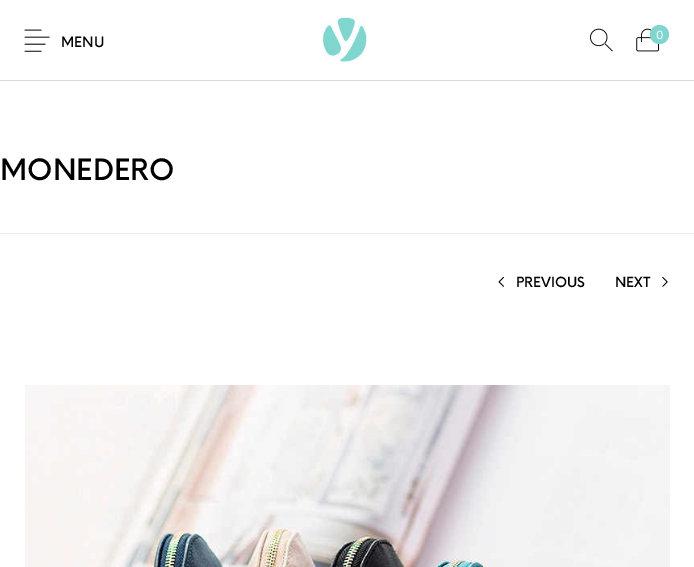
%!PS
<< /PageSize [694 567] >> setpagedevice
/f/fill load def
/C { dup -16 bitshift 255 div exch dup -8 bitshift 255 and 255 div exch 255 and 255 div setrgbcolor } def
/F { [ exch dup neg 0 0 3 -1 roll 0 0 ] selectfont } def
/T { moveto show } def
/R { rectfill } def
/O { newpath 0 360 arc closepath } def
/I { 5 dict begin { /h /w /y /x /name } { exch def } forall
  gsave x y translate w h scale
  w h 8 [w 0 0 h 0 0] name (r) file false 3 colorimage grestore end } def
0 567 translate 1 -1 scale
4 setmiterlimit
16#FFFFFF C
0 0 694 567 R
16#D9D9D9 C
0 80 694 1 R
(1.rgb) 322 16 45 48 I
(2.rgb) 590 28 23 24 I
(3.rgb) 636 28 23 24 I
16#80D6CF C
659.5 34.5 9.5 O f
/LibreFranklin-Regular 11 F
16#FFFFFF C
(0) 656 39 T
(4.rgb) 24 29 26 23 I
/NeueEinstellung-Medium 14 F
16#000000 C
(MENU) 61 47 T
16#EBEBEB C
0 233 694 1 R
/NeueEinstellung-Medium 28.75 F
16#000000 C
(MONEDERO) 0 180 T
(5.rgb) 498 277 6 10 I
/NeueEinstellung-Medium 13.75 F
(PREVIOUS) 516 287 T
(NEXT) 615 287 T
(6.rgb) 662 277 6 10 I
(7.rgb) 25 385 645 182 I
showpage
